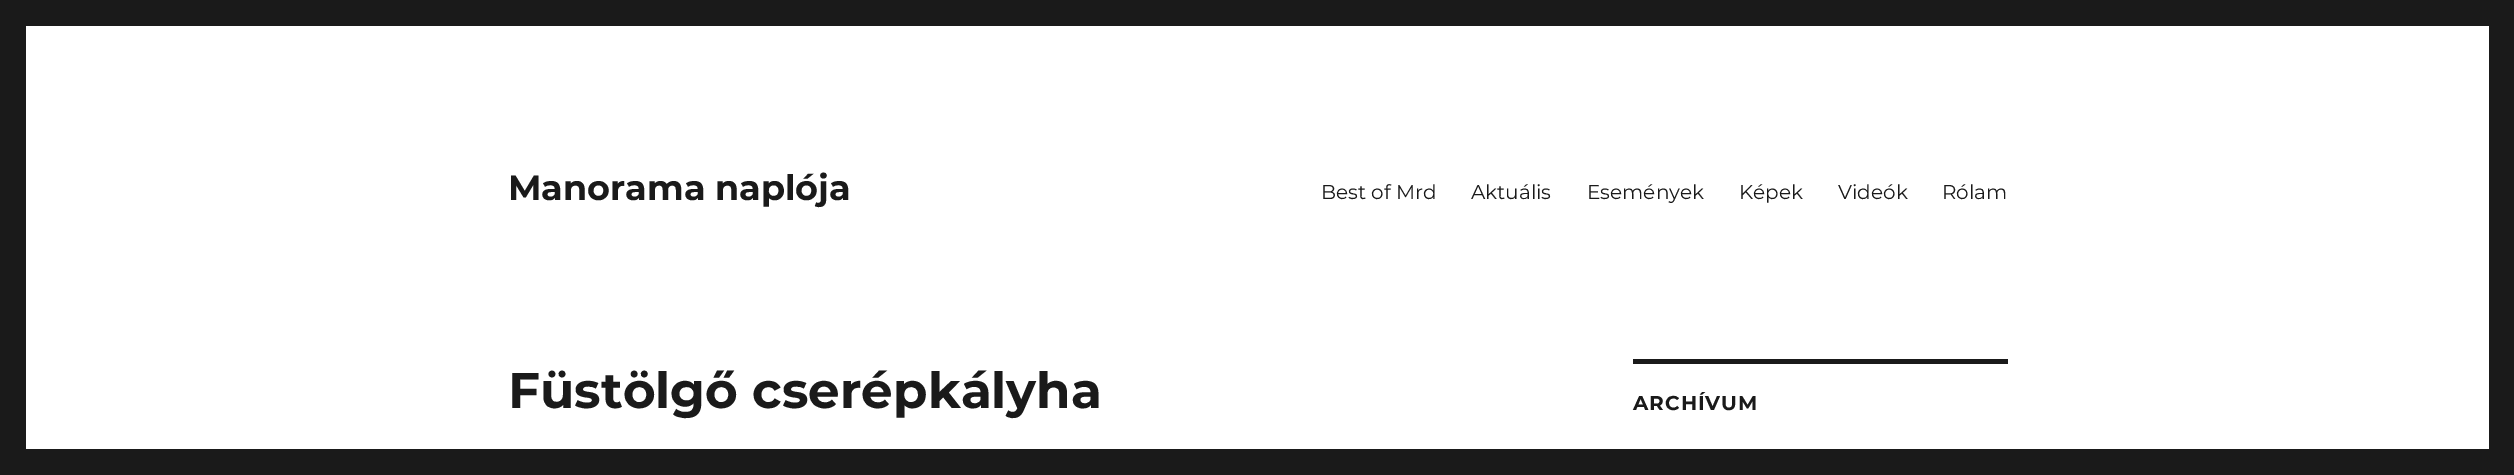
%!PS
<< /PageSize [2514 475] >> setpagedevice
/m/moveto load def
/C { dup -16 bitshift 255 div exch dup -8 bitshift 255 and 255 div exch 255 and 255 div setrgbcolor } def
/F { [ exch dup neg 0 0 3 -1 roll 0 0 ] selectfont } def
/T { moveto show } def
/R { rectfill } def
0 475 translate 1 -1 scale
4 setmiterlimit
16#1A1A1A C
0 0 2514 475 R
16#FFFFFF C
26 26 2463 423 R
/Montserrat-Thin 35 F
16#1A1A1A C
(Manorama naplója) 508 200 T
/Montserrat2-Thin 20 F
(Best of Mrd) 1321 199 T
(Aktuális) 1471 199 T
(Események) 1587 199 T
(Képek) 1739 199 T
(Videók) 1838 199 T
(Rólam) 1942 199 T
/Montserrat-Thin 50 F
(Füstölgő cserépkályha) 508 408 T
1633 359 375 5 R
/Montserrat-Thin 20 F
1633 410 m 1 0 (ARCHÍVUM) ashow
showpage
